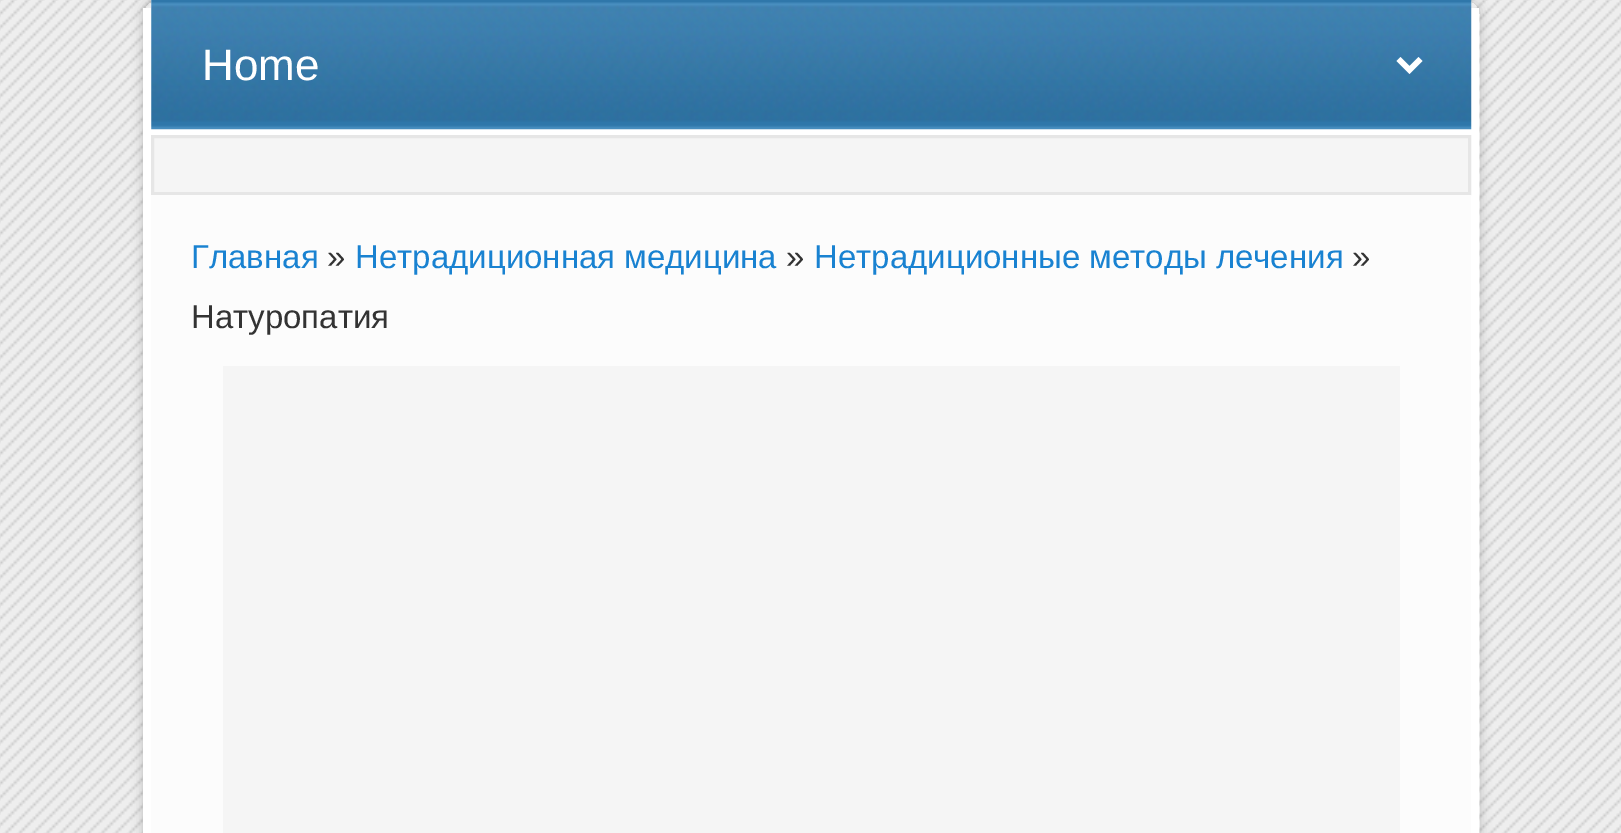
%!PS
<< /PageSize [1621 833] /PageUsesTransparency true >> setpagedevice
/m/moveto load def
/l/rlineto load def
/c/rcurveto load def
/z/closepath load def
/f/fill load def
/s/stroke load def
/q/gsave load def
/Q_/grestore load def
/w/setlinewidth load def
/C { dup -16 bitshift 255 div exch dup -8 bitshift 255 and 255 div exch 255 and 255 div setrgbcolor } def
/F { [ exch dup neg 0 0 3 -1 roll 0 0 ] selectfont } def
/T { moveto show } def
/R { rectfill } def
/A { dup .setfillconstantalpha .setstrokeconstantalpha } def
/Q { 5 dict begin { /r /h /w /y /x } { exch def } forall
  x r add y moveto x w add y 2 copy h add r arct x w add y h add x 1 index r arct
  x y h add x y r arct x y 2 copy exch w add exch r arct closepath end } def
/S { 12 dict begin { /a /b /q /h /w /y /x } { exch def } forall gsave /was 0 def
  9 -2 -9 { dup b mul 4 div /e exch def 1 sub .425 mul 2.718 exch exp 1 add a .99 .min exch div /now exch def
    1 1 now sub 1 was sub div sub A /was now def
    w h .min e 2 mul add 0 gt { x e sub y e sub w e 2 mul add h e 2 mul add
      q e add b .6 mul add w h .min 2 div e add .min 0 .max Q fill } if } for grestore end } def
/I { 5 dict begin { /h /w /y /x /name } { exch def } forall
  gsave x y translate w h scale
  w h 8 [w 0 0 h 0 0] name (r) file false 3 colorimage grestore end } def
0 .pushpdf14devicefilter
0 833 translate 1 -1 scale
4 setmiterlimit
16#EEEEEE C
0 0 1621 833 R
(1.rgb) 0 0 1621 833 I
q
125 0 m 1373 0 l 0 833 l -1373 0 l z 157 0 m 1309 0 l 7.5 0 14 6.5 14 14 c 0 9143 l 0 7.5 -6.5 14 -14 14 c -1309 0 l -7.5 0 -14 -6.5 -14 -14 c 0 -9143 l 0 -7.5 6.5 -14 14 -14 c z eoclip newpath
16#000000 C
143 0 1337 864 14 5.5 .2 S
Q_
16#FFFFFF C
1471 8 8 825 R
143 8 8 825 R
151 0 1320 135 R
(2.rgb) 151 0 1321 130 I
5.5 w
1398.5 59 m 11 11 l 11 -11 l s
/LiberationSans-Regular 44 F
(Home) 202 80 T
16#F5F5F5 C
152.5 136.5 m 1317 0 l 0 57 l -1317 0 l z q f Q_
16#E6E6E6 C
3 w
s
16#FCFCFC C
151 195 1320 638 R
/LiberationSans-Regular 33 F
16#1982D1 C
(Главная) 191 268 T
16#333333 C
(») 327 268 T
16#1982D1 C
(Нетрадиционная медицина) 355 268 T
16#333333 C
(») 786 268 T
16#1982D1 C
(Нетрадиционные методы лечения) 814 268 T
16#333333 C
(») 1352 268 T
(Натуропатия) 191 328 T
16#F5F5F5 C
223 366 1177 467 R
.poppdf14devicefilter showpage
